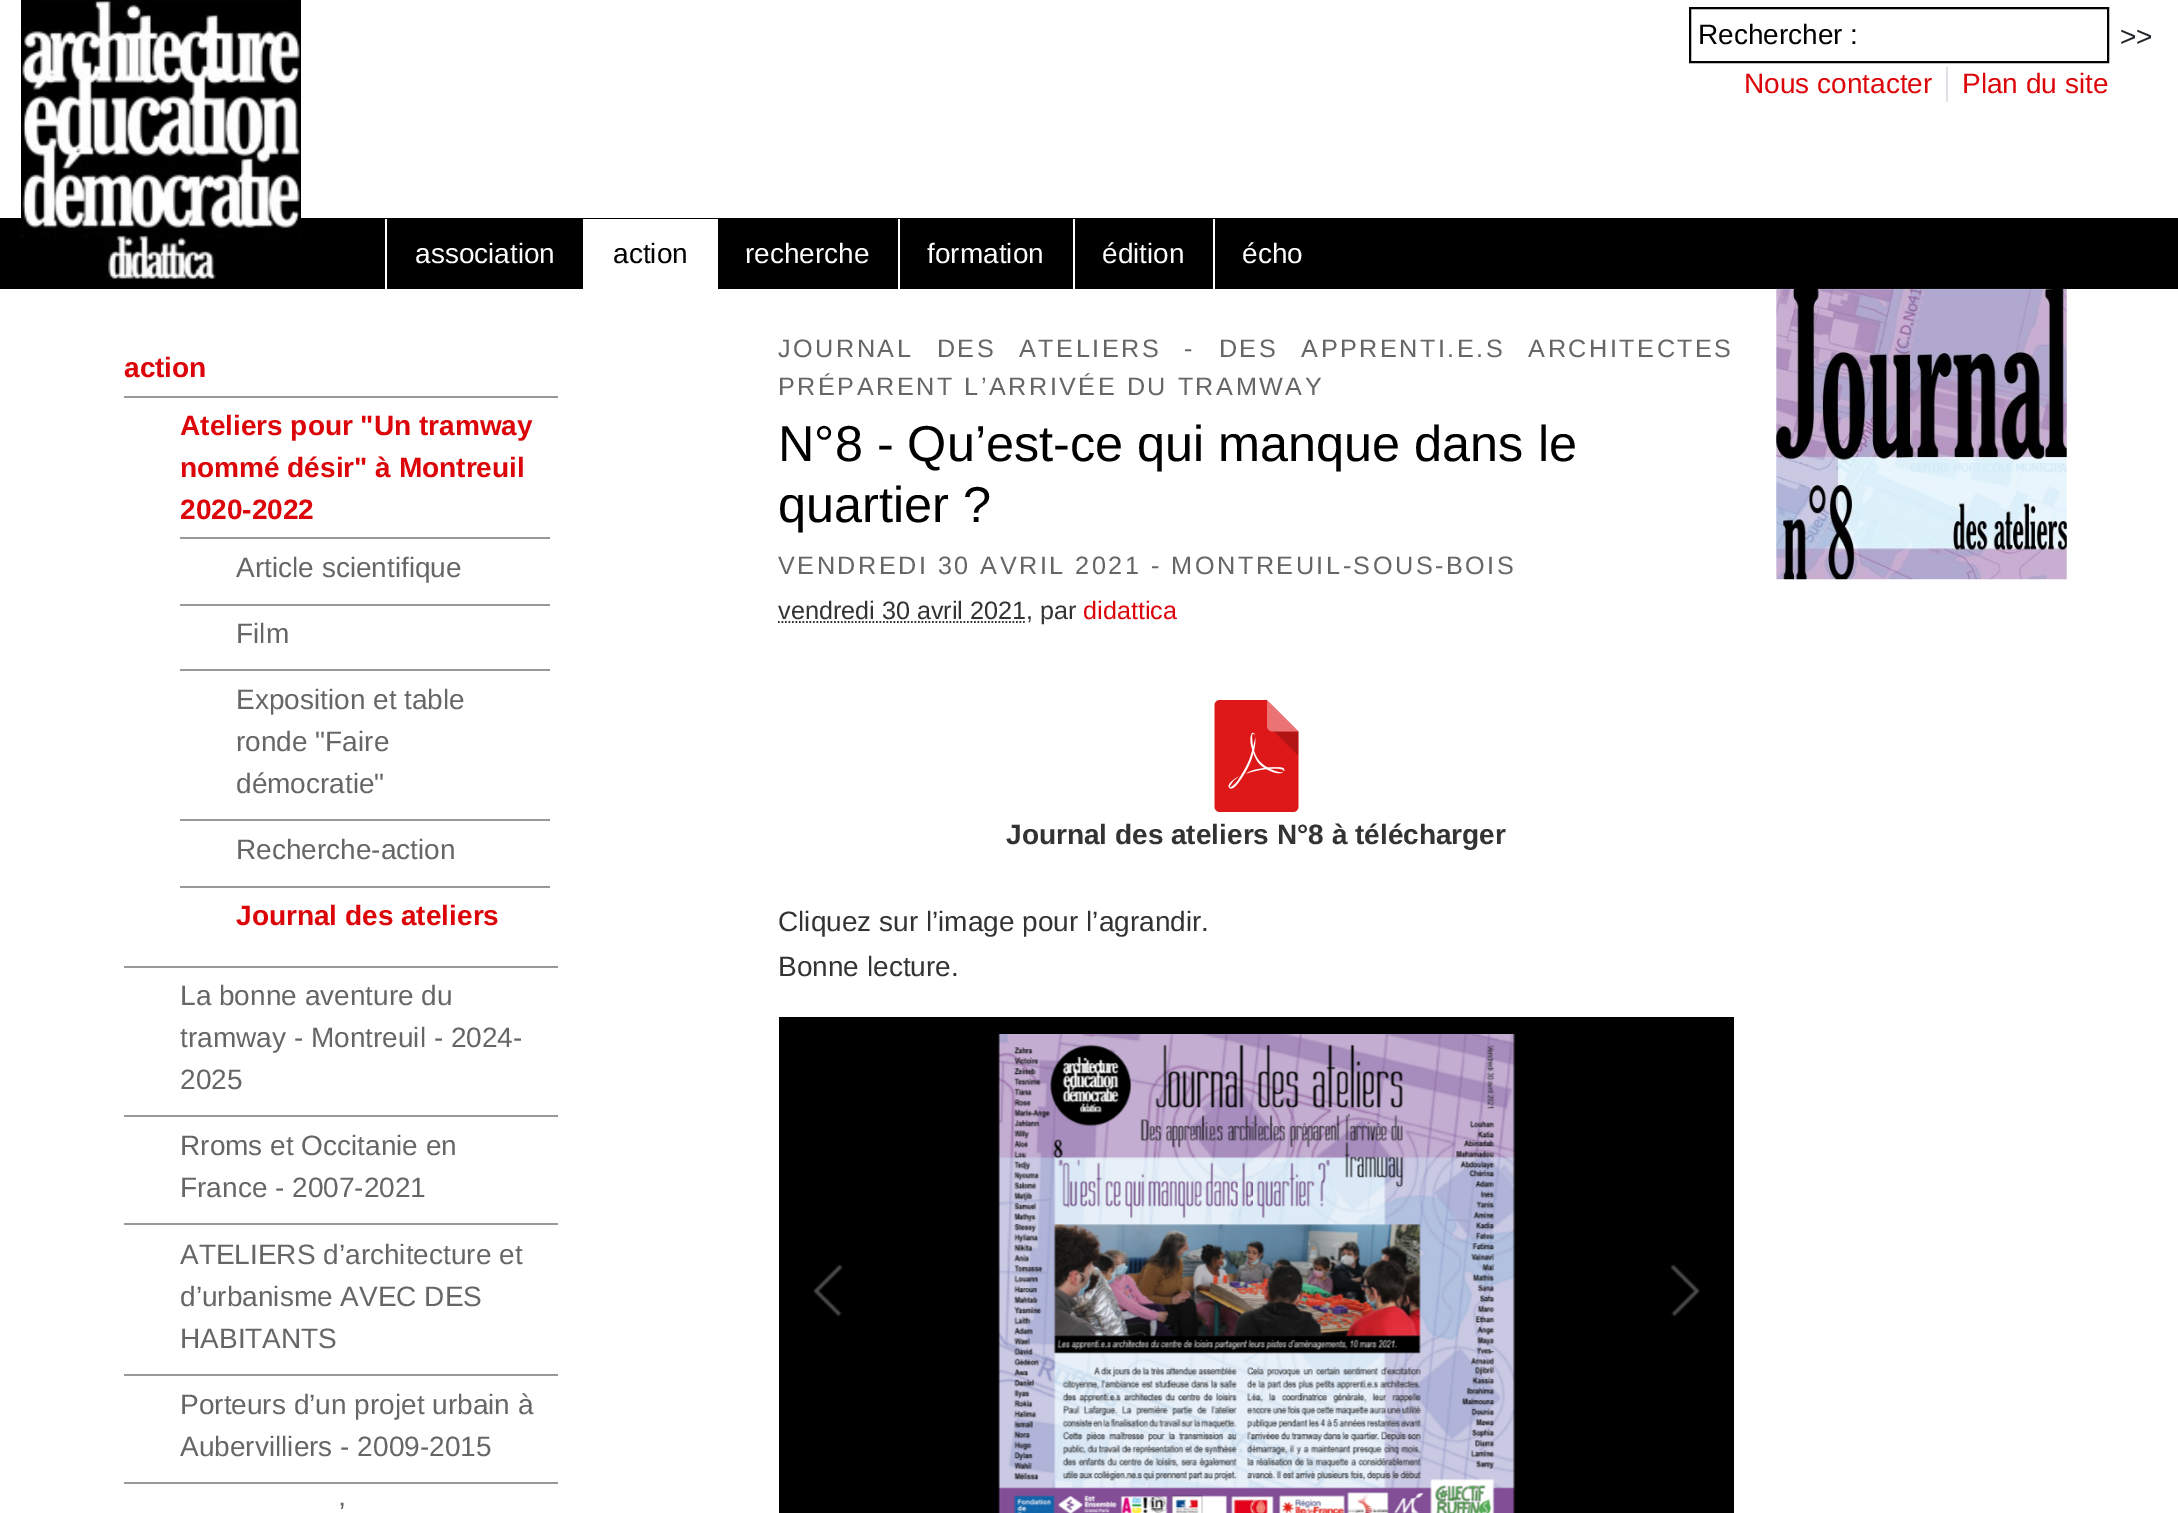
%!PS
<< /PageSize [2178 1513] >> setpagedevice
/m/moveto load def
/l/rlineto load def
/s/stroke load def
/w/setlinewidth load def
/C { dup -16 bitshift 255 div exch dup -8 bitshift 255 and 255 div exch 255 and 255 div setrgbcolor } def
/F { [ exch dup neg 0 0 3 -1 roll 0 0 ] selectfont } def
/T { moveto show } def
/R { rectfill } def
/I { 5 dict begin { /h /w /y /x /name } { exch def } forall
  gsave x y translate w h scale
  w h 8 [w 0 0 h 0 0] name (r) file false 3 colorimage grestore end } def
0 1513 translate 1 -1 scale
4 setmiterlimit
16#FFFFFF C
0 0 2178 1513 R
16#000000 C
2 w
1690 8 418 54 rectstroke
/LiberationSans-Regular 28 F
(Rechercher :) 1698 44 T
16#212529 C
(>>) 2120 46 T
16#DEE2E6 C
1946 67 2 35 R
16#DC0509 C
(Nous contacter) 1744 93 T
(Plan du site) 1962 93 T
16#000000 C
0 218 2178 71 R
(1.rgb) 21 0 280 281 I
16#FFFFFF C
385 219 2 70 R
(association) 415 263 T
583 219 135 70 R
16#000000 C
(action) 613 263 T
16#FFFFFF C
(recherche) 745 263 T
898 219 2 70 R
(formation) 927 263 T
1073 219 2 70 R
(édition) 1102 263 T
1213 219 2 70 R
(écho) 1242 263 T
/LiberationSans-Bold 28 F
16#DC0509 C
(action) 124 377 T
16#999999 C
124 396 434 2 R
16#DC0509 C
(Ateliers pour "Un tramway) 180 435 T
(nommé désir" à Montreuil) 180 477 T
(2020-2022) 180 519 T
16#999999 C
180 537 370 2 R
/LiberationSans-Regular 28 F
16#666666 C
(Article scientifique) 236 577 T
16#999999 C
180 604 370 2 R
16#666666 C
(Film) 236 643 T
16#999999 C
180 669 370 2 R
16#666666 C
(Exposition et table) 236 709 T
(ronde "Faire) 236 751 T
(démocratie") 236 793 T
16#999999 C
180 819 370 2 R
16#666666 C
(Recherche-action) 236 859 T
16#999999 C
180 886 370 2 R
/LiberationSans-Bold 28 F
16#DC0509 C
(Journal des ateliers) 236 925 T
16#999999 C
124 966 434 2 R
/LiberationSans-Regular 28 F
16#666666 C
(La bonne aventure du) 180 1005 T
(tramway - Montreuil - 2024-) 180 1047 T
(2025) 180 1089 T
16#999999 C
124 1115 434 2 R
16#666666 C
(Rroms et Occitanie en) 180 1155 T
(France - 2007-2021) 180 1197 T
16#999999 C
124 1223 434 2 R
16#666666 C
(ATELIERS d’architecture et) 180 1264 T
(d’urbanisme AVEC DES) 180 1306 T
(HABITANTS) 180 1348 T
16#999999 C
124 1374 434 2 R
16#666666 C
(Porteurs d’un projet urbain à) 180 1414 T
(Aubervilliers - 2009-2015) 180 1456 T
16#999999 C
124 1482 434 2 R
16#666666 C
(’) 339 1522 T
/LiberationSans-Regular 25.2 F
778 357 m 13.75 0 32 2.52 0 (JOURNAL DES ATELIERS - DES APPRENTI.E.S ARCHITECTES) awidthshow
778 395 m 2.52 0 (PRÉPARENT L’ARRIVÉE DU TRAMWAY) ashow
/LiberationSans-Regular 50.4 F
16#000000 C
(N°8 - Qu’est-ce qui manque dans le) 778 461 T
(quartier ?) 778 522 T
/LiberationSans-Regular 25.2 F
16#666666 C
778 574 m 2.52 0 (VENDREDI 30 AVRIL 2021 - MONTREUIL-SOUS-BOIS) ashow
16#333333 C
1.8 w
[1.75 1.75] 0 setdash
778 622 m 247.5 0 l s
(vendredi 30 avril 2021, par) 778 619 T
16#DC0509 C
(didattica) 1083 619 T
(2.rgb) 1214 700 85 112 I
/LiberationSans-Bold 28 F
16#333333 C
(Journal des ateliers N°8 à télécharger) 1006 844 T
/LiberationSans-Regular 28 F
(Cliquez sur l’image pour l’agrandir.) 778 931 T
(Bonne lecture.) 778 976 T
16#000000 C
779 1017 955 496 R
(3.rgb) 998 1034 517 479 I
(4.rgb) 813 1264 30 53 I
(5.rgb) 1670 1264 30 53 I
(6.rgb) 1776 288 291 292 I
showpage
